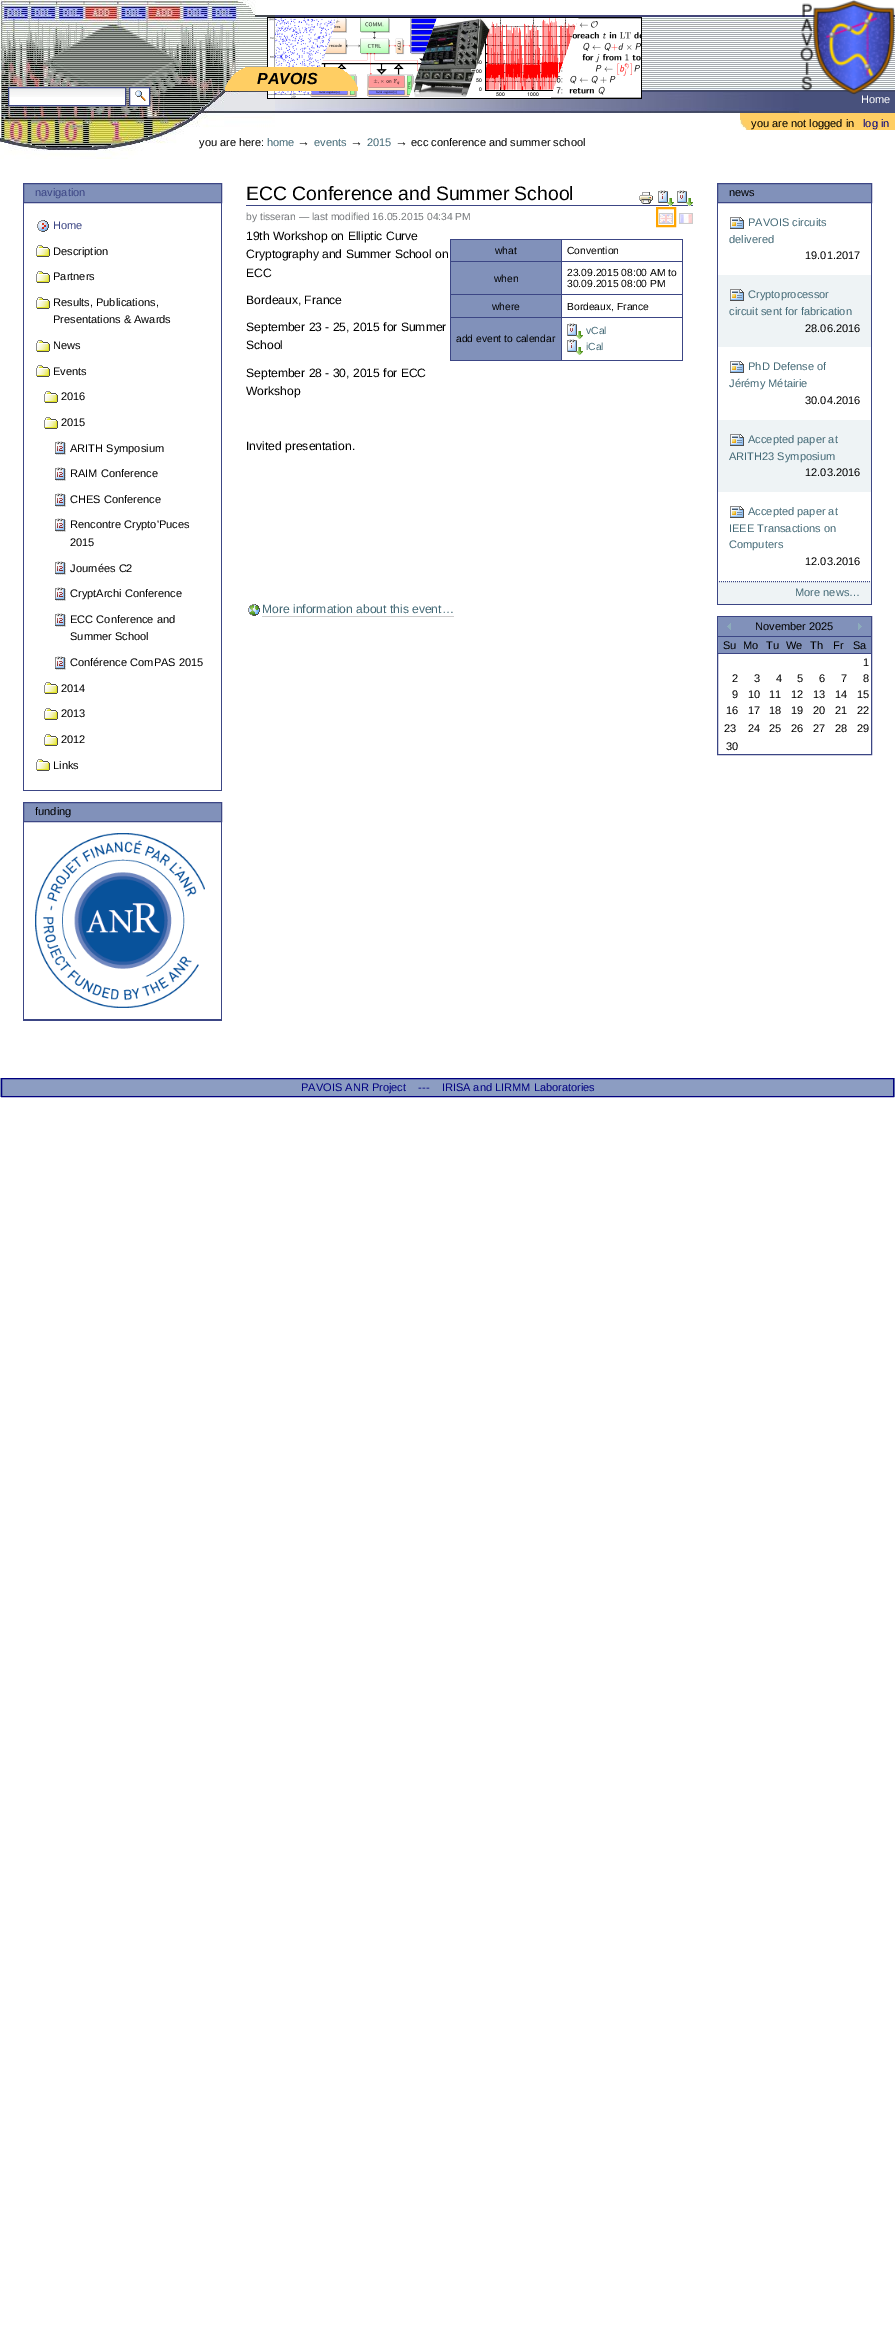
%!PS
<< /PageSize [895 2344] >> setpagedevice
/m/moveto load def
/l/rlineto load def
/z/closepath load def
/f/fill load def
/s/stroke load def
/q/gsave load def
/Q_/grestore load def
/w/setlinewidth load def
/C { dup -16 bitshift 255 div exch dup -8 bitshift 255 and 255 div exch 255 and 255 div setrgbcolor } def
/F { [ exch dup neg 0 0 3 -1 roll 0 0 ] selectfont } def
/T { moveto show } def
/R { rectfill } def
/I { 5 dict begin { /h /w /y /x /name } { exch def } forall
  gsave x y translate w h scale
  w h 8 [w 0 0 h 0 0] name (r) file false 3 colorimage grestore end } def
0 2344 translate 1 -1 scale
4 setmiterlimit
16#FFFFFF C
0 0 895 2344 R
(1.rgb) 275 15 620 77 I
(2.rgb) 0 0 275 159 I
(9.rgb) 275 92 524 21 I
(3.rgb) 267 17 375 82 I
16#48517C C
799 92 96 21 R
(4.rgb) 800 0 95 95 I
(5.rgb) 225 67 30 24 I
16#FFCE63 C
255 67 64 24 R
/LiberationSans-BoldItalic 16 F
16#000000 C
(PAVOIS) 257 84 T
(6.rgb) 319 67 39 24 I
16#FFFFFF C
9 97 116 8 R
(7.rgb) 9 88 116 9 I
16#3C4685 C
8.5 87.5 117 18 rectstroke
16#FFFFFF C
130 88 19 17 R
(8.rgb) 135 90 11 11 I
16#3C4685 C
129.5 87.5 20 18 rectstroke
/LiberationSans-Regular 11.05 F
16#FFFFFF C
(Home) 861 103 T
16#FFCE63 C
740 113 155 17 R
(10.rgb) 740 118 9 12 I
16#000000 C
(you are not logged in) 751 127 T
16#000080 C
(log in) 863 127 T
16#000000 C
(you are here:) 199 146 T
16#436976 C
(home) 267 146 T
/LiberationSans-Regular 13 F
16#000000 C
(→) 297 146 T
/LiberationSans-Regular 11.05 F
16#436976 C
(events) 314 146 T
/LiberationSans-Regular 13 F
16#000000 C
(→) 350 146 T
/LiberationSans-Regular 11.05 F
16#436976 C
(2015) 367 146 T
/LiberationSans-Regular 13 F
16#000000 C
(→) 395 146 T
/LiberationSans-Regular 11.05 F
(ecc conference and summer school) 411 146 T
16#3C4685 C
23 790 199 1 R
16#8191BA C
23.5 183.5 m 198 0 l 0 19 l -198 0 l z q f Q_
16#3C4685 C
s
(navigation) 35 196 T
221 203 1 587 R
23 203 1 587 R
(11.rgb) 37 220 12 12 I
(Home) 53 229 T
(12.rgb) 36 245 14 12 I
16#000000 C
(Description) 53 255 T
(12.rgb) 36 271 14 12 I
(Partners) 53 280 T
(12.rgb) 36 297 14 12 I
(Results, Publications,) 53 306 T
(Presentations & Awards) 53 323 T
(12.rgb) 36 340 14 12 I
(News) 53 349 T
(12.rgb) 36 365 14 12 I
(Events) 53 375 T
(12.rgb) 44 391 14 12 I
(2016) 61 400 T
(12.rgb) 44 417 14 12 I
(2015) 61 426 T
(13.rgb) 55 441 11 14 I
(ARITH Symposium) 70 452 T
(13.rgb) 55 467 11 14 I
(RAIM Conference) 70 477 T
(13.rgb) 55 493 11 14 I
(CHES Conference) 70 503 T
(13.rgb) 55 518 11 14 I
(Rencontre Crypto'Puces) 70 528 T
(2015) 70 546 T
(13.rgb) 55 561 11 14 I
(Journées C2) 70 572 T
(13.rgb) 55 587 11 14 I
(CryptArchi Conference) 70 597 T
(13.rgb) 55 613 11 14 I
(ECC Conference and) 70 623 T
(Summer School) 70 640 T
(13.rgb) 55 656 11 14 I
(Conférence ComPAS 2015) 70 666 T
(12.rgb) 44 682 14 12 I
(2014) 61 692 T
(12.rgb) 44 708 14 12 I
(2013) 61 717 T
(12.rgb) 44 734 14 12 I
(2012) 61 743 T
(12.rgb) 36 759 14 12 I
(Links) 53 769 T
16#3C4685 C
23 1020 199 1 R
16#8191BA C
23.5 802.5 m 198 0 l 0 19 l -198 0 l z q f Q_
16#3C4685 C
s
16#000000 C
(funding) 35 815 T
16#3C4685 C
221 822 1 198 R
23 1019 199 1 R
23 822 1 198 R
(14.rgb) 35 833 170 175 I
246 205 447 1 R
/LiberationSans-Regular 19.4 F
16#000000 C
(ECC Conference and Summer School) 246 200 T
(15.rgb) 639 192 14 12 I
(16.rgb) 658 190 16 16 I
(17.rgb) 677 190 16 16 I
16#FFA500 C
2 w
657 208 18 18 rectstroke
(18.rgb) 659 213 14 11 I
(19.rgb) 679 213 14 11 I
/LiberationSans-Regular 10.3 F
16#76797C C
(by tisseran — last modified 16.05.2015 04:34 PM) 246 220 T
/LiberationSans-Regular 12.1 F
16#000000 C
(19th Workshop on Elliptic Curve) 246 240 T
(Cryptography and Summer School on) 246 258 T
(ECC) 246 277 T
(Bordeaux, France) 246 304 T
(September 23 - 25, 2015 for Summer) 246 331 T
(School) 246 349 T
(September 28 - 30, 2015 for ECC) 246 377 T
(Workshop) 246 395 T
(Invited presentation.) 246 450 T
16#3C4685 C
450 360 233 1 R
450 239 1 122 R
16#8191BA C
451 240 110 21 R
16#3C4685 C
450 239 233 1 R
450 261 233 1 R
450 294 233 1 R
450 317 233 1 R
561 317 1 44 R
561 294 1 24 R
561 261 1 34 R
561 239 1 23 R
/LiberationSans-Regular 10.3 F
16#000000 C
(what) 495 254 T
16#3C4685 C
682 317 1 44 R
682 294 1 24 R
682 261 1 34 R
682 239 1 23 R
16#000000 C
(Convention) 567 254 T
16#8191BA C
451 262 110 32 R
16#000000 C
(when) 494 282 T
(23.09.2015 08:00 AM to) 567 276 T
(30.09.2015 08:00 PM) 567 287 T
16#8191BA C
451 295 110 22 R
16#000000 C
(where) 492 310 T
(Bordeaux, France) 567 310 T
16#8191BA C
451 318 110 42 R
16#000000 C
(add event to calendar) 456 342 T
(20.rgb) 567 323 16 16 I
16#436976 C
(vCal) 586 334 T
(21.rgb) 567 339 16 16 I
(iCal) 586 350 T
(22.rgb) 248 604 12 12 I
/LiberationSans-Regular 12.1 F
(More information about this event…) 262 613 T
16#CCCCCC C
262 616 192 1 R
16#3C4685 C
717 604 155 1 R
16#8191BA C
717.5 183.5 m 154 0 l 0 19 l -154 0 l z q f Q_
16#3C4685 C
1 w
s
/LiberationSans-Regular 11.05 F
16#000000 C
(news) 729 196 T
16#3C4685 C
871 203 1 378 R
717 203 1 378 R
(23.rgb) 730 217 14 12 I
16#436976 C
(PAVOIS circuits) 748 226 T
(delivered) 729 243 T
16#000000 C
(19.01.2017) 805 259 T
16#EEF3F5 C
718 275 153 72 R
(24.rgb) 730 289 14 12 I
16#436976 C
(Cryptoprocessor) 748 298 T
(circuit sent for fabrication) 729 315 T
16#000000 C
(28.06.2016) 805 332 T
(23.rgb) 730 361 14 12 I
16#436976 C
(PhD Defense of) 748 370 T
(Jérémy Métairie) 729 387 T
16#000000 C
(30.04.2016) 805 404 T
16#EEF3F5 C
718 420 153 72 R
(24.rgb) 730 434 14 12 I
16#436976 C
(Accepted paper at) 748 443 T
(ARITH23 Symposium) 729 460 T
16#000000 C
(12.03.2016) 805 476 T
(23.rgb) 730 506 14 12 I
16#436976 C
(Accepted paper at) 748 515 T
(IEEE Transactions on) 729 532 T
(Computers) 729 548 T
16#000000 C
(12.03.2016) 805 565 T
16#EEF3F5 C
718 581 153 23 R
16#3C4685 C
[1 1] 0 setdash
717 581.5 m 155 0 l s
871 581 1 23 R
717 581 1 23 R
16#436976 C
(More news…) 795 596 T
16#3C4685 C
[] 0 setdash
717.5 616.5 154 138 rectstroke
16#8191BA C
718 617 153 19 R
(25.rgb) 727 623 4 7 I
16#000000 C
(November 2025) 755 630 T
(26.rgb) 858 623 4 7 I
16#8191BA C
718 637 153 16 R
16#3C4685 C
718 636 153 1 R
718 653 153 1 R
16#000000 C
(Su) 723 649 T
(Mo) 743 649 T
(Tu) 766 649 T
(We) 786 649 T
(Th) 810 649 T
(Fr) 833 649 T
(Sa) 853 649 T
(1) 863 666 T
(2) 732 682 T
(3) 754 682 T
(4) 776 682 T
(5) 797 682 T
(6) 819 682 T
(7) 841 682 T
(8) 863 682 T
(9) 732 698 T
(10) 748 698 T
(11) 769 698 T
(12) 791 698 T
(13) 813 698 T
(14) 835 698 T
(15) 857 698 T
(16) 726 714 T
(17) 748 714 T
(18) 769 714 T
(19) 791 714 T
(20) 813 714 T
(21) 835 714 T
(22) 857 714 T
(23) 724 732 T
(24) 748 732 T
(25) 769 732 T
(26) 791 732 T
(27) 813 732 T
(28) 835 732 T
(29) 857 732 T
(30) 726 750 T
16#8191BA C
0 1078 895 19 R
16#8C9DC2 C
1.5 1078.5 m 892 0 l 0 18 l -892 0 l z q f Q_
16#000080 C
s
(PAVOIS ANR Project    ---    IRISA and LIRMM Laboratories) 301 1091 T
showpage
